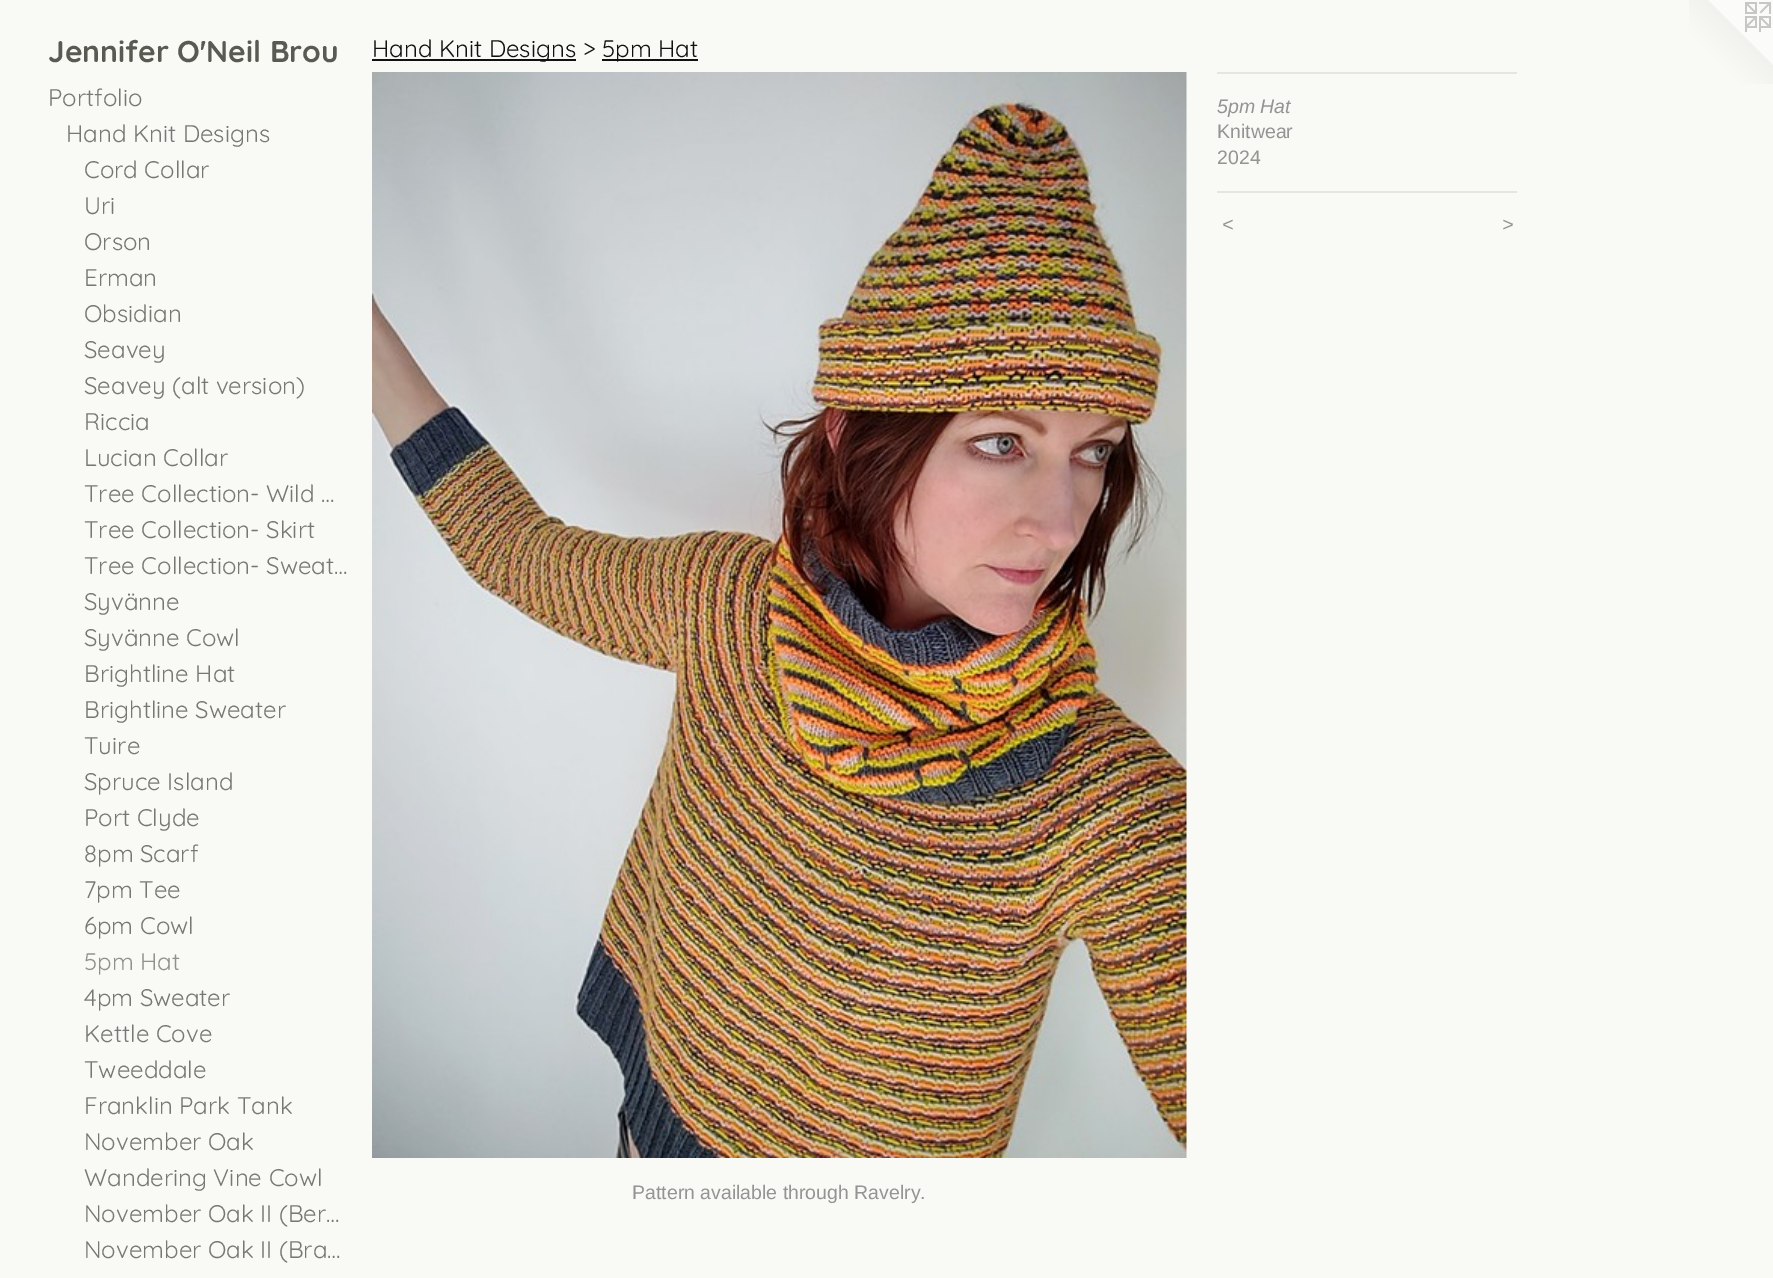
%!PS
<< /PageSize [1773 1278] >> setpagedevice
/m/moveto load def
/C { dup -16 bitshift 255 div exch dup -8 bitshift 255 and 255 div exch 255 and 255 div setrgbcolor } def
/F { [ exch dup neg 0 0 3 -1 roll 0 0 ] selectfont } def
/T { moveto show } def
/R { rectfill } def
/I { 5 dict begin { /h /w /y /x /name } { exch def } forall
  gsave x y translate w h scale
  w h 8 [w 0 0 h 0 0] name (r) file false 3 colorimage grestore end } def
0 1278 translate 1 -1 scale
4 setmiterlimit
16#F9F9F6 C
0 0 1773 1278 R
/Quicksand-Light 30 F
16#595B52 C
(Jennifer O'Neil Brou) 48 62 T
/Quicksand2-Light 24 F
16#757873 C
(Portfolio) 48 106 T
(Hand Knit Designs) 66 142 T
(Cord Collar) 84 178 T
(Uri) 84 214 T
(Orson) 84 250 T
(Erman) 84 286 T
(Obsidian) 84 322 T
(Seavey) 84 358 T
(Seavey \(alt version\)) 84 394 T
(Riccia) 84 430 T
(Lucian Collar) 84 466 T
(Tree Collection- Wild …) 84 502 T
(Tree Collection- Skirt) 84 538 T
(Tree Collection- Sweat…) 84 574 T
(Syvänne) 84 610 T
(Syvänne Cowl) 84 646 T
(Brightline Hat) 84 682 T
(Brightline Sweater) 84 718 T
(Tuire) 84 754 T
(Spruce Island) 84 790 T
(Port Clyde) 84 826 T
(8pm Scarf) 84 862 T
(7pm Tee) 84 898 T
(6pm Cowl) 84 934 T
16#8F918D C
(5pm Hat) 84 970 T
16#757873 C
(4pm Sweater) 84 1006 T
(Kettle Cove) 84 1042 T
(Tweeddale) 84 1078 T
(Franklin Park Tank) 84 1114 T
(November Oak) 84 1150 T
(Wandering Vine Cowl) 84 1186 T
(November Oak II \(Ber…) 84 1222 T
(November Oak II \(Bra…) 84 1258 T
16#121111 C
372 59 204 2 R
(Hand Knit Designs >) 372 57 T
602 59 96 2 R
(5pm Hat) 602 57 T
(1.rgb) 372 72 815 1086 I
16#E5E5E2 C
1217 72 300 2 R
/LiberationSans-Italic 19.5 F
16#949494 C
(5pm Hat) 1217 113 T
/LiberationSans-Regular 19.5 F
(Knitwear) 1217 138 T
(2024) 1217 164 T
16#E5E5E2 C
1217 191 300 2 R
/LiberationSans-Italic 19.5 F
16#949494 C
1222 231 m 2 0 (<) ashow
1502 231 m 2 0 (>) ashow
/LiberationSans-Regular 19.5 F
(Pattern available through Ravelry.) 632 1199 T
(2.rgb) 1689 0 84 84 I
showpage
